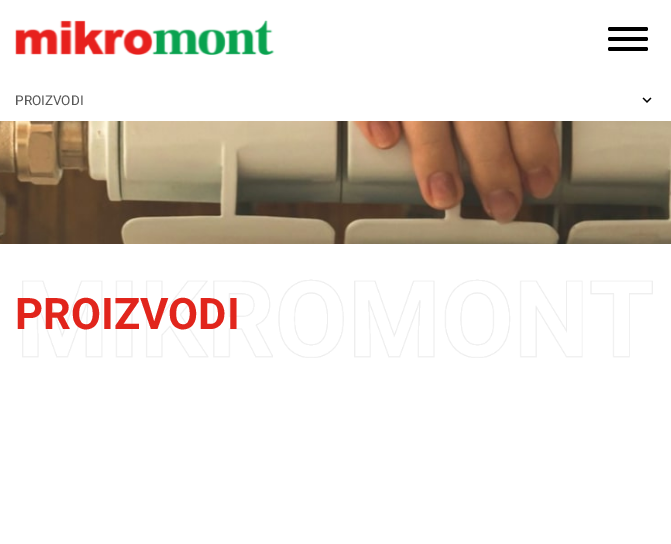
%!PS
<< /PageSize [671 544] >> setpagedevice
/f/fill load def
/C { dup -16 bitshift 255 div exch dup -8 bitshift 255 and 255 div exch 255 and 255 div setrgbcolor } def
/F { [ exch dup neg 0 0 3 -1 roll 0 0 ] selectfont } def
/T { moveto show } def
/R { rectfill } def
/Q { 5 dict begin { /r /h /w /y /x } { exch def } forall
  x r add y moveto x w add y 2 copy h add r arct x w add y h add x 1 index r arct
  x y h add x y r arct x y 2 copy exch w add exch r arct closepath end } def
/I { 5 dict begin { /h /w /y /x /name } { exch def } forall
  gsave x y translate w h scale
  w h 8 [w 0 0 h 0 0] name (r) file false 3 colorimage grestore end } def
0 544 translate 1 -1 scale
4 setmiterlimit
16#FFFFFF C
0 0 671 544 R
(1.rgb) 15 20 260 35 I
16#000000 C
608 37 40 4 2 Q f
608 27 40 4 2 Q f
608 47 40 4 2 Q f
/Roboto-Regular 13.5 F
16#585858 C
(PROIZVODI) 15 105 T
(2.rgb) 642 97 10 6 I
(3.rgb) 0 121 671 123 I
(4.rgb) 22 279 631 79 I
/Roboto-Bold 43.5 F
16#E1251C C
(PROIZVODI) 15 329 T
showpage
